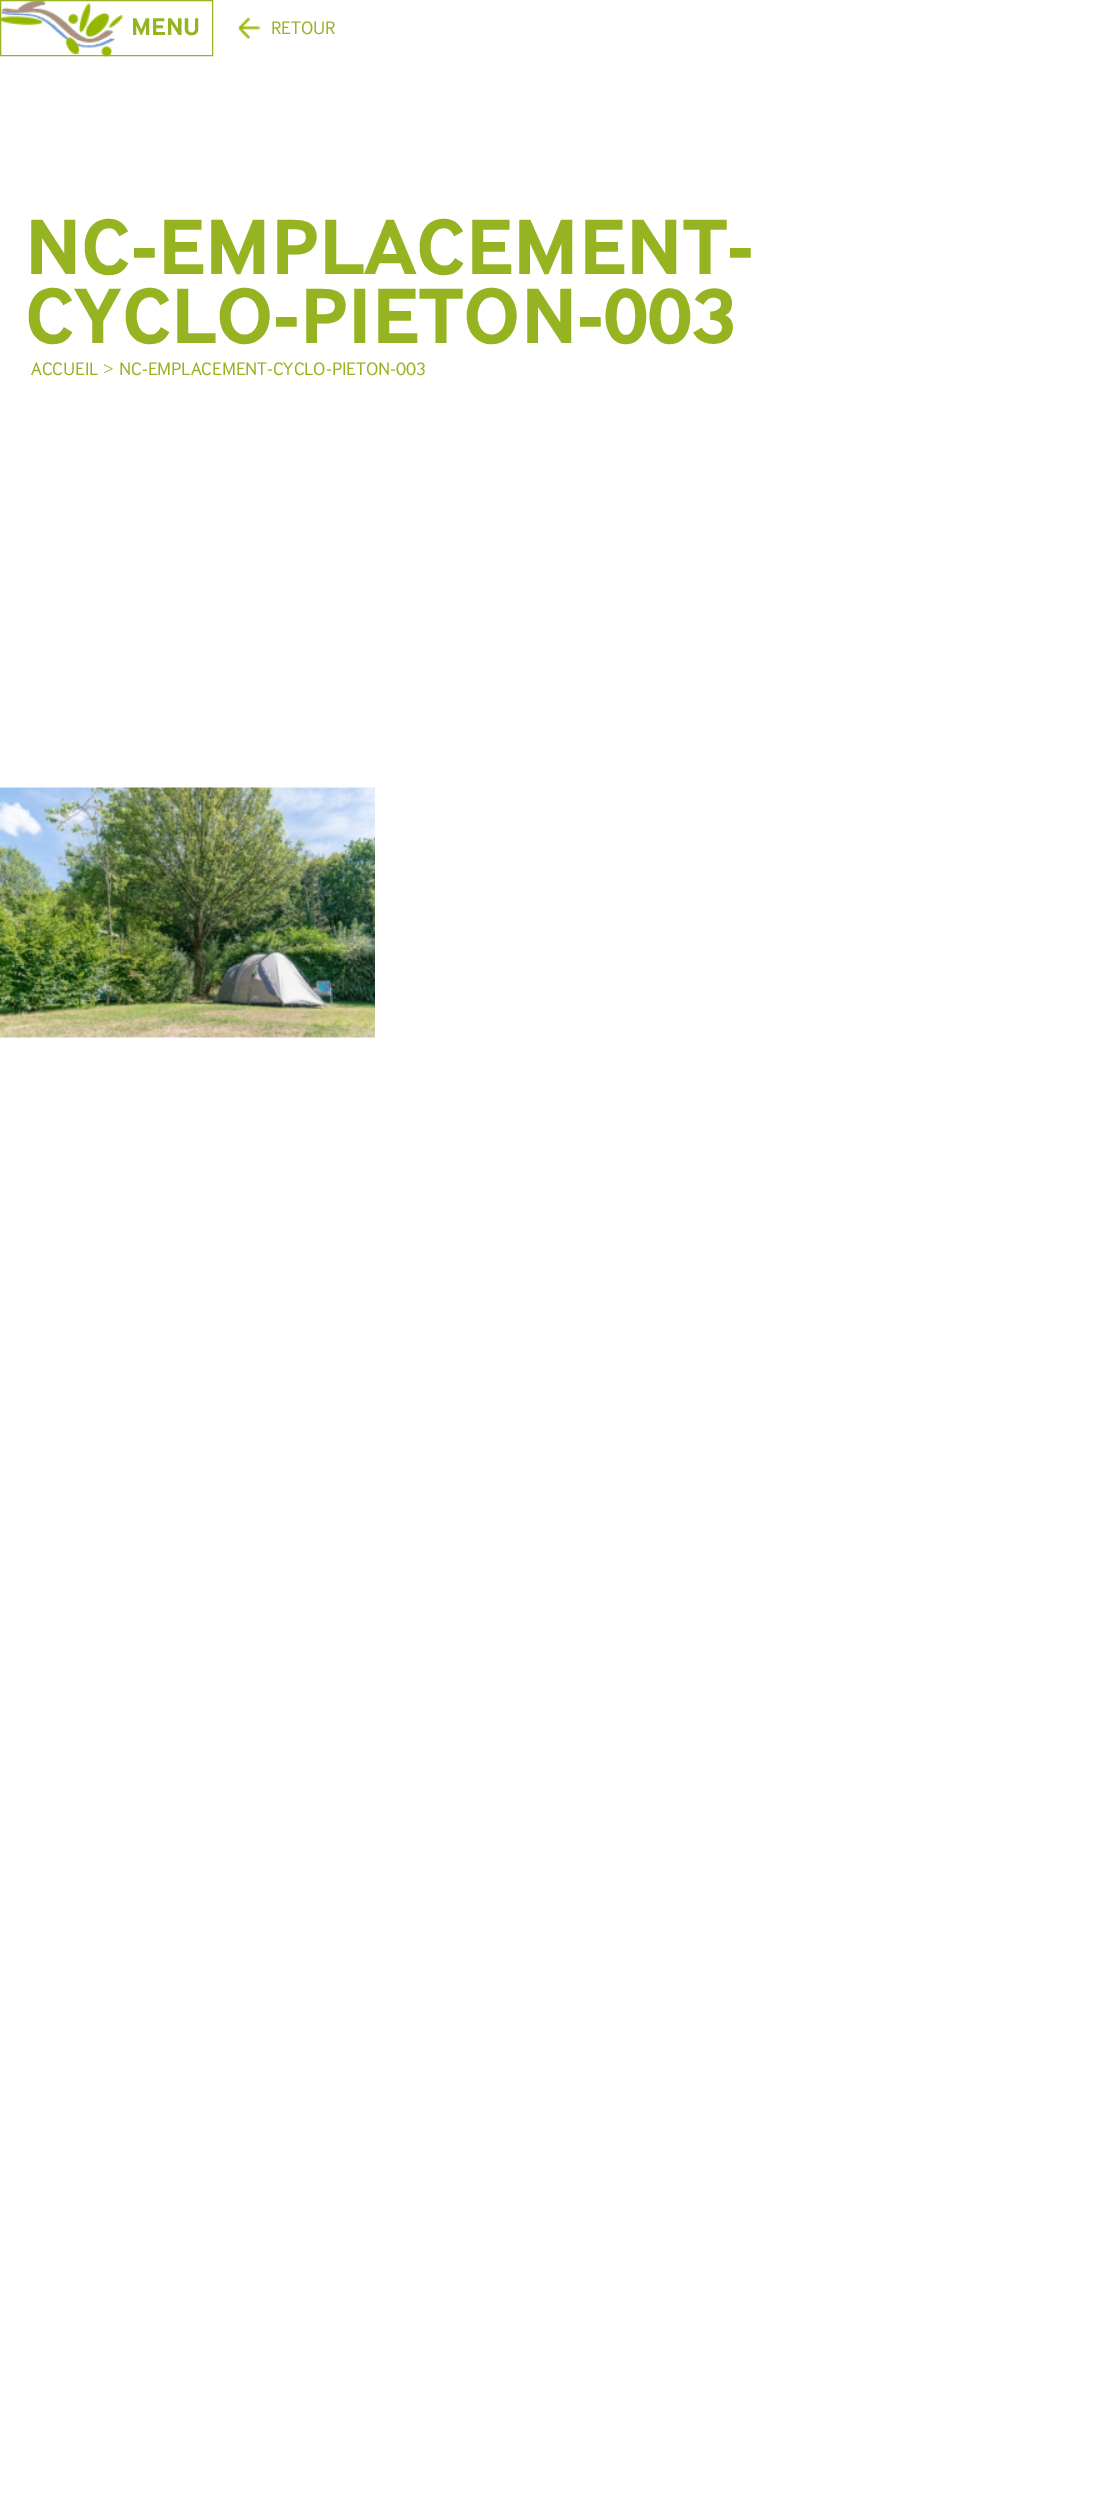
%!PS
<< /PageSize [1116 2509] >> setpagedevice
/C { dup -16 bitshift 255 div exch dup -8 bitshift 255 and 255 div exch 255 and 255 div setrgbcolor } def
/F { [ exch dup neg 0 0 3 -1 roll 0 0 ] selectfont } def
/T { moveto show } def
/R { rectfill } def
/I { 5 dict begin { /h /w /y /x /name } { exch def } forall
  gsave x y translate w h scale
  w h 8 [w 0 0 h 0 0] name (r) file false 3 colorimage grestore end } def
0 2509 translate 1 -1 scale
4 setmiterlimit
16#FFFFFF C
0 0 1116 2509 R
(1.rgb) 1 1 122 56 I
16#96B422 C
.5 .5 212 55 rectstroke
/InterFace-Bold 25 F
(MENU) 131 35 T
(2.rgb) 238 17 23 22 I
/InterFace-Regular 18.75 F
(RETOUR) 271 34 T
/InterFace-Bold 81.25 F
(NC-EMPLACEMENT-) 25 274 T
(CYCLO-PIETON-003) 25 343 T
/InterFace-Regular 18.75 F
(ACCUEIL) 31 375 T
/LiberationSerif-Regular 18.75 F
(>) 103 375 T
/InterFace-Regular 18.75 F
(NC-EMPLACEMENT-CYCLO-PIETON-003) 119 375 T
(3.rgb) 0 787 375 251 I
showpage
